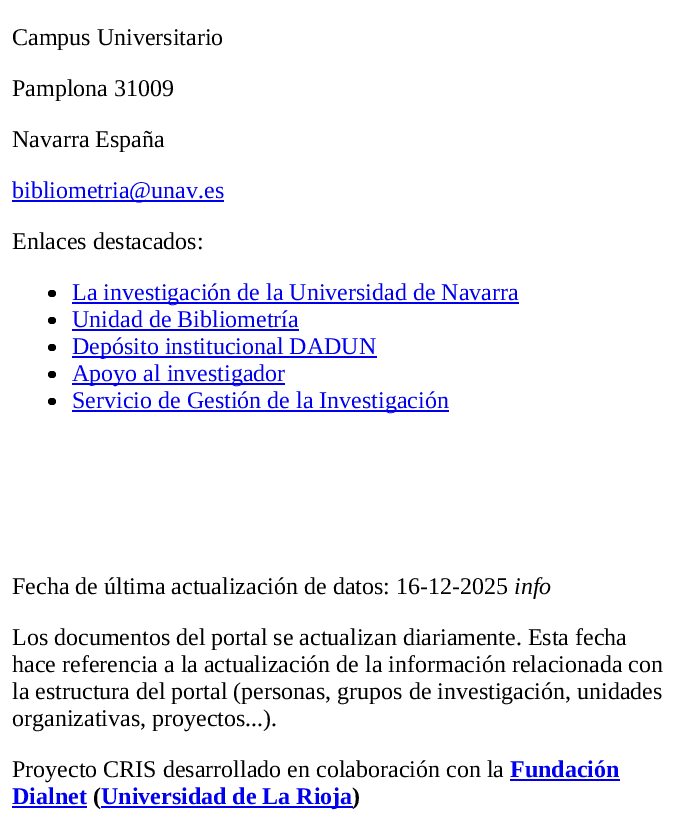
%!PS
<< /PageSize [676 822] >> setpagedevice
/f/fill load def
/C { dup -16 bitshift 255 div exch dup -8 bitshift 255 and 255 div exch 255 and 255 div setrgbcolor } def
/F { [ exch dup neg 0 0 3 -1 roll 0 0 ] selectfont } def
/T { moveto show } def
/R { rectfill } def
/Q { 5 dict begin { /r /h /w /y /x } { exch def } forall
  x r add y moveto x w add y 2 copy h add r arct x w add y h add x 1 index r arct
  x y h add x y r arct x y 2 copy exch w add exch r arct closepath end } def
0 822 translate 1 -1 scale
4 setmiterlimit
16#FFFFFF C
0 0 676 822 R
/LiberationSerif-Regular 24 F
16#000000 C
(Campus Universitario) 12 45 T
(Pamplona 31009) 12 96 T
(Navarra España) 12 147 T
16#0000EE C
12 200 212 2 R
(bibliometria@unav.es) 12 198 T
16#000000 C
(Enlaces destacados:) 12 249 T
48 290 8 7 3.5 Q f
16#0000EE C
72 302 447 2 R
(La investigación de la Universidad de Navarra) 72 300 T
16#000000 C
48 317 8 7 3.5 Q f
16#0000EE C
(Unidad de Bibliometría) 72 327 T
72 329 227 2 R
16#000000 C
48 344 8 7 3.5 Q f
16#0000EE C
72 356 305 2 R
(Depósito institucional DADUN) 72 354 T
16#000000 C
48 371 8 7 3.5 Q f
16#0000EE C
72 383 213 2 R
(Apoyo al investigador) 72 381 T
16#000000 C
48 398 8 7 3.5 Q f
16#0000EE C
72 410 377 2 R
(Servicio de Gestión de la Investigación) 72 408 T
16#000000 C
(Fecha de última actualización de datos: 16-12-2025) 12 594 T
/LiberationSerif-Italic 24 F
(info) 514 594 T
/LiberationSerif-Regular 24 F
(Los documentos del portal se actualizan diariamente. Esta fecha) 12 645 T
(hace referencia a la actualización de la información relacionada con) 12 672 T
(la estructura del portal \(personas, grupos de investigación, unidades) 12 699 T
(organizativas, proyectos...\).) 12 726 T
(Proyecto CRIS desarrollado en colaboración con la) 12 777 T
/LiberationSerif-Bold 24 F
16#0000EE C
(Fundación) 510 777 T
510 779 110 2 R
(Dialnet) 12 804 T
12 806 75 2 R
16#000000 C
(\() 93 804 T
16#0000EE C
101 806 252 2 R
(Universidad de La Rioja) 101 804 T
16#000000 C
(\)) 352 804 T
showpage
